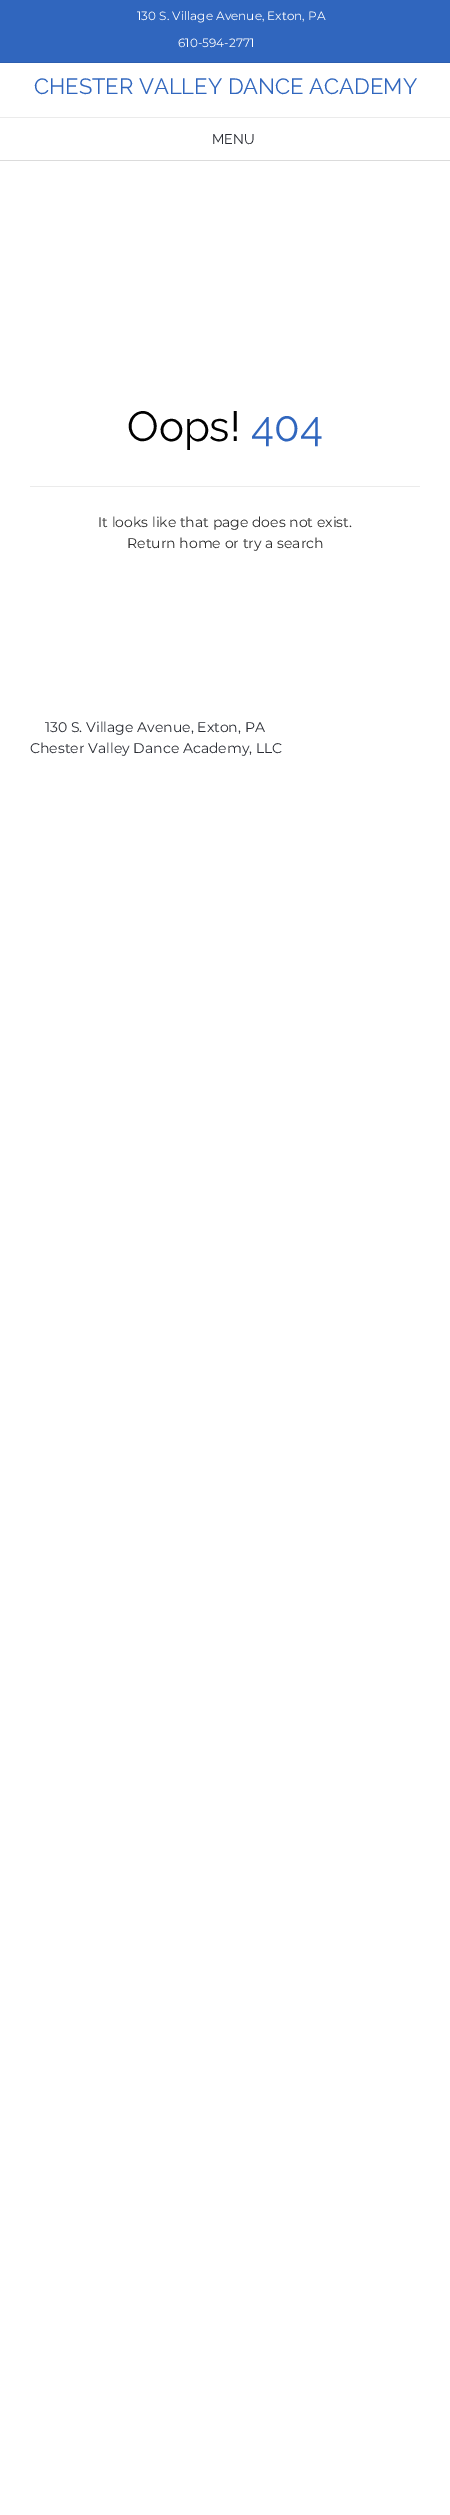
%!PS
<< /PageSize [450 2515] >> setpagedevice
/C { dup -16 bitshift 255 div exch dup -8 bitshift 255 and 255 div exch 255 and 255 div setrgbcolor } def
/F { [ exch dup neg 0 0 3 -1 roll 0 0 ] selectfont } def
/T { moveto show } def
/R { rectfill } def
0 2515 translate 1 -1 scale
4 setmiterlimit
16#FFFFFF C
0 0 450 2515 R
16#DBDBDB C
0 160 450 1 R
16#3066BE C
0 0 450 62 R
16#2C5EAF C
0 62 450 1 R
/Montserrat-Regular 12 F
16#FFFFFF C
(130 S. Village Avenue, Exton, PA) 137 20 T
(610-594-2771) 178 47 T
/Raleway-Regular 22 F
16#3066BE C
(CHESTER VALLEY DANCE ACADEMY) 34 94 T
16#EBEBEB C
0 117 450 1 R
/Raleway-Regular 14 F
16#2A2D34 C
(MENU) 212 144 T
16#EBEBEB C
30 486 390 1 R
/Raleway-Regular 42 F
16#000000 C
(Oops!) 127 441 T
16#3066BE C
(404) 251 441 T
/Montserrat-Regular 14 F
16#2D2D2D C
(It looks like that page does not exist.) 98 527 T
(Return home or try a search) 127 548 T
16#2A2D34 C
(130 S. Village Avenue, Exton, PA) 45 732 T
(Chester Valley Dance Academy, LLC) 30 753 T
showpage
